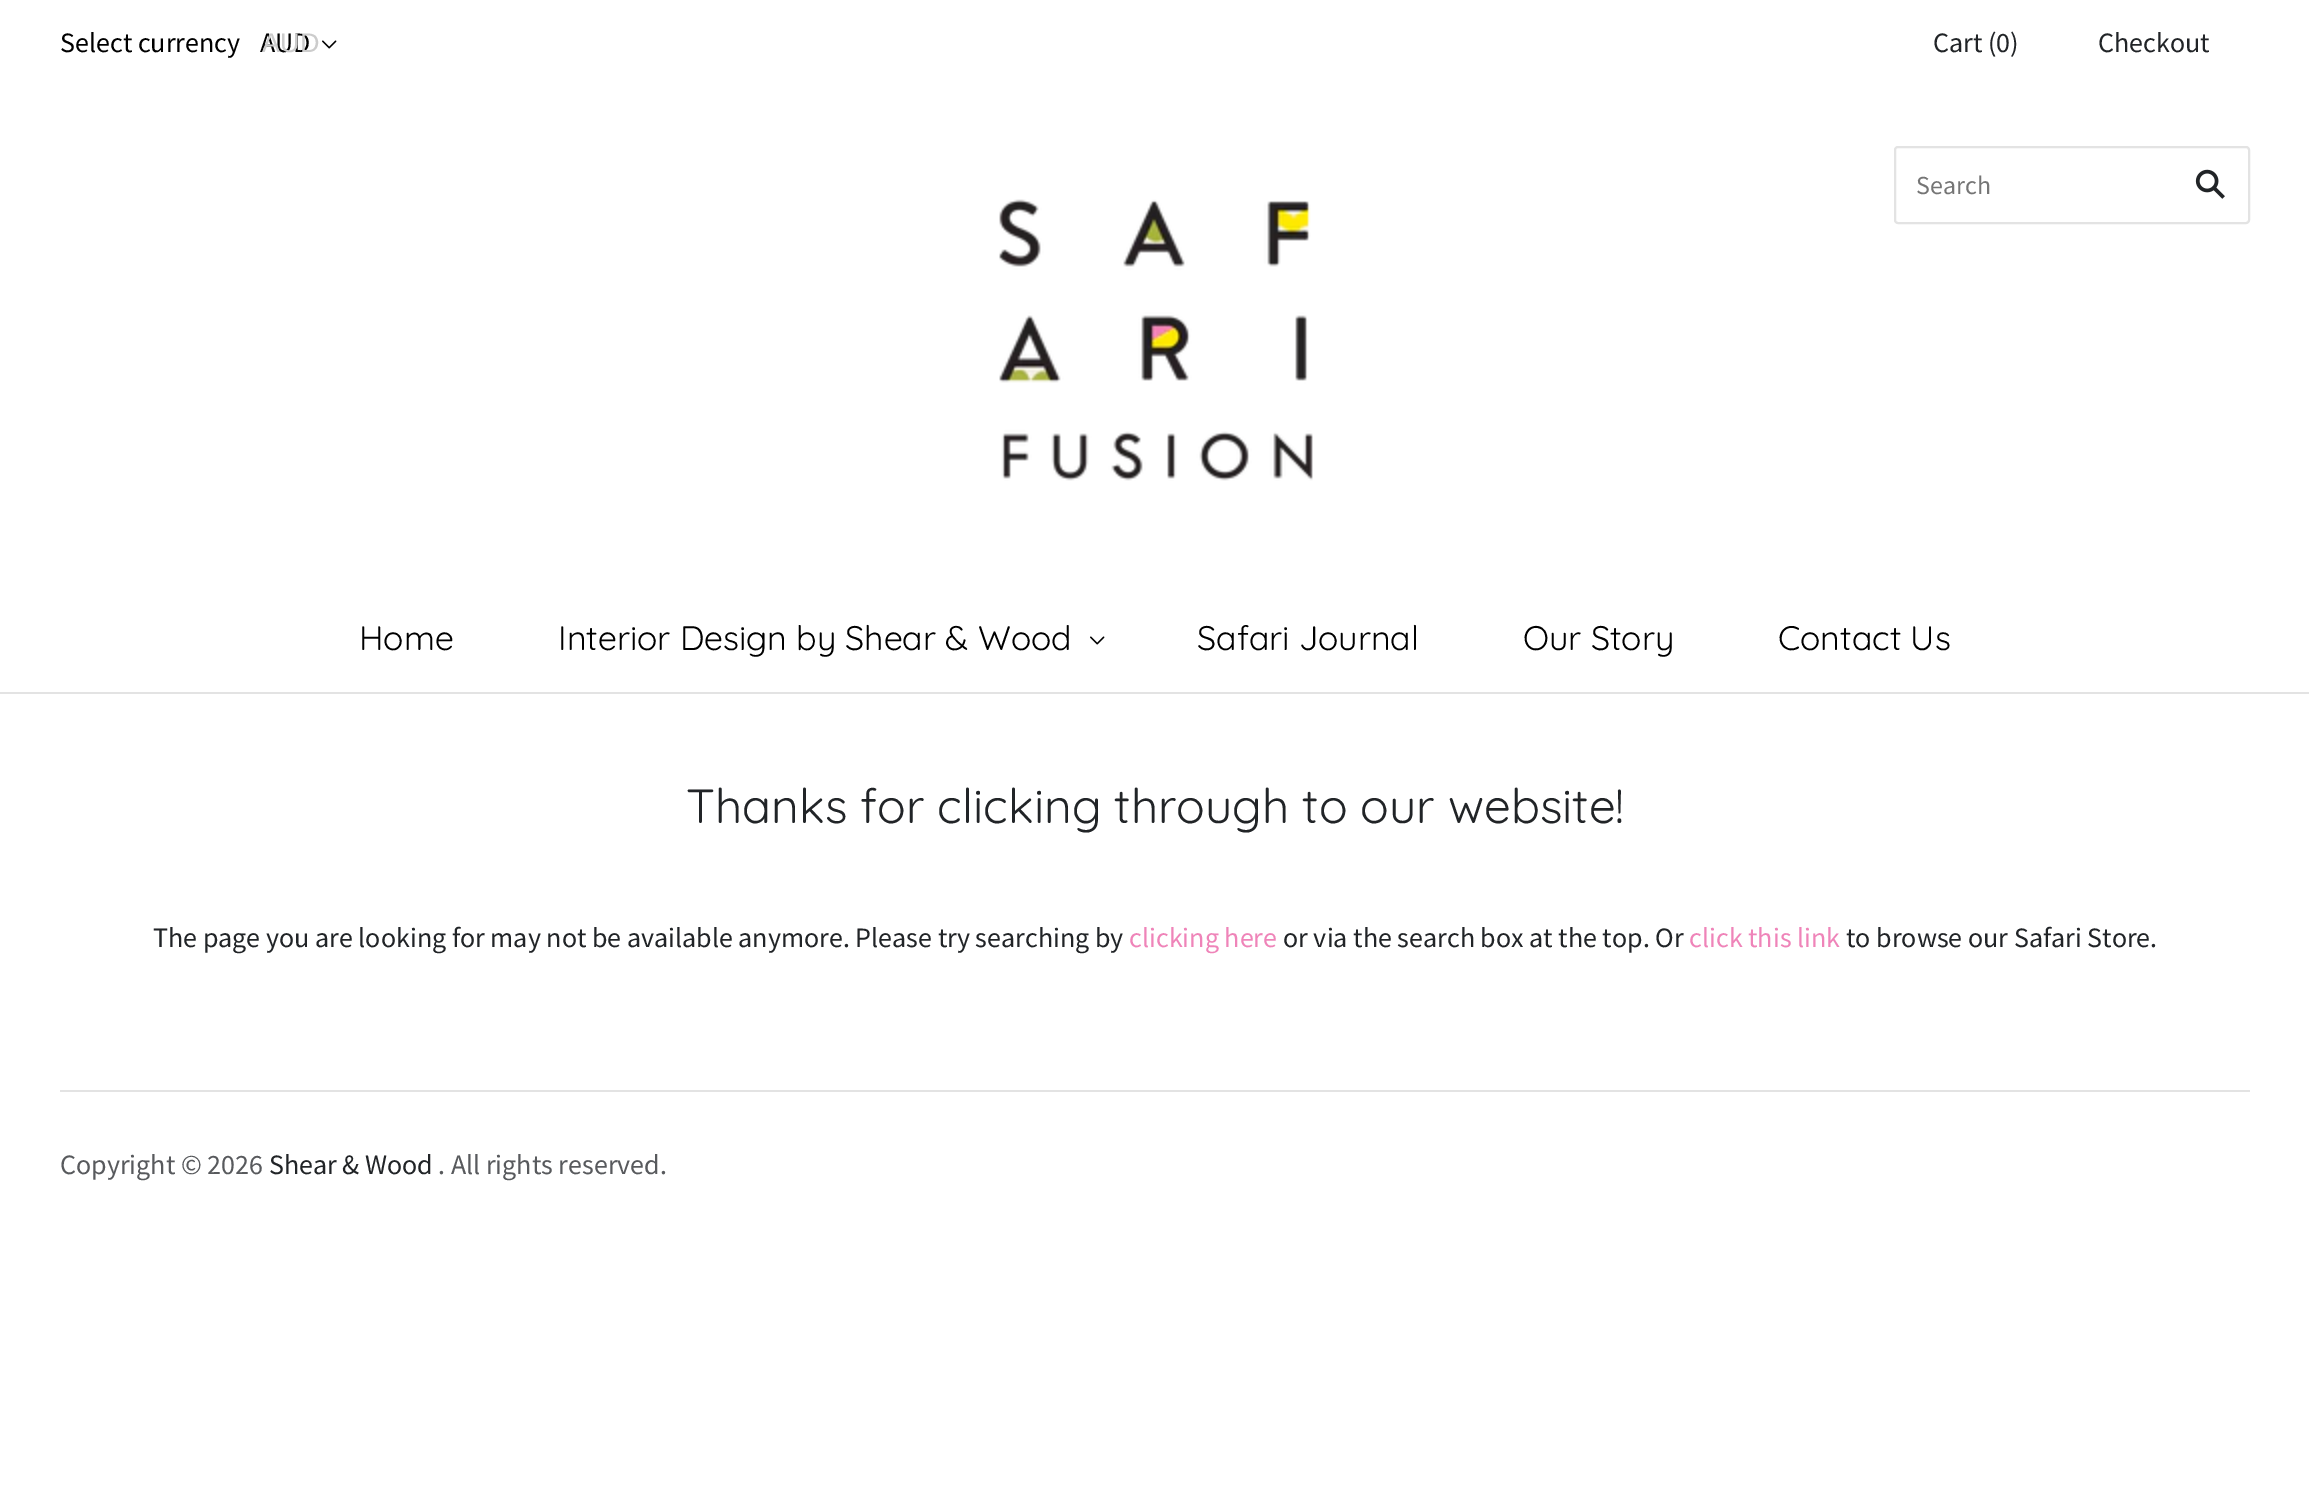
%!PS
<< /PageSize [2309 1503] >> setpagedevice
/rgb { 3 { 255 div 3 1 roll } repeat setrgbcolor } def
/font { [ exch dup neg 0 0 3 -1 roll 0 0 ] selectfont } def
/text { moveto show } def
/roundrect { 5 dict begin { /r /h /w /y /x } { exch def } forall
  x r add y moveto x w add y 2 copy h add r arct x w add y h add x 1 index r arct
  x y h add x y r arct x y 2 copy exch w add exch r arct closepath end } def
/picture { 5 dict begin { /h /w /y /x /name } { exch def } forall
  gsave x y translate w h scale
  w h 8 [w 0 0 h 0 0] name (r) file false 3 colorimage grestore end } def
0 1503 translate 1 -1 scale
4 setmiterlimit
255 255 255 rgb
0 0 2309 1503 rectfill
227 227 227 rgb
0 692 2309 2 rectfill
(img_01.rgb) 322 40 15 9 picture
2 setlinewidth
1895 147 354 76 3 roundrect stroke
(img_02.rgb) 2195 169 30 30 picture
(img_03.rgb) 999 199 314 282 picture
(img_01.rgb) 1090 636 15 9 picture
60 1090 2190 2 rectfill
/SourceSansPro-Regular 28 font
0 0 0 rgb
(Select currency) 60 52 text
(AUD) 260 52 text
/LiberationSans-Regular 27 font
204 204 204 rgb
(AUD) 262 52 text
/SourceSansPro-Regular 28 font
33 36 39 rgb
(Cart \(0\)) 1933 52 text
(Checkout) 2098 52 text
/SourceSansPro-Regular 26 font
117 117 117 rgb
(Search) 1916 194 text
/Quicksand-Regular 34 font
0 0 0 rgb
(Home) 359 650 text
(Interior Design by Shear & Wood) 558 650 text
(Safari Journal) 1197 650 text
(Our Story) 1523 650 text
(Contact Us) 1778 650 text
/Quicksand-Regular 48 font
33 36 39 rgb
(Thanks for clicking through to our website!) 686 823 text
/SourceSansPro-Regular 28 font
(The page you are looking for may not be available anymore. Please try searching by) 153 947 text
239 132 185 rgb
(clicking here) 1129 947 text
33 36 39 rgb
(or via the search box at the top. Or) 1283 947 text
239 132 185 rgb
(click this link) 1689 947 text
33 36 39 rgb
(to browse our Safari Store.) 1846 947 text
88 90 93 rgb
(Copyright © 2026) 60 1174 text
33 36 39 rgb
(Shear & Wood) 269 1174 text
88 90 93 rgb
(. All rights reserved.) 438 1174 text
showpage
